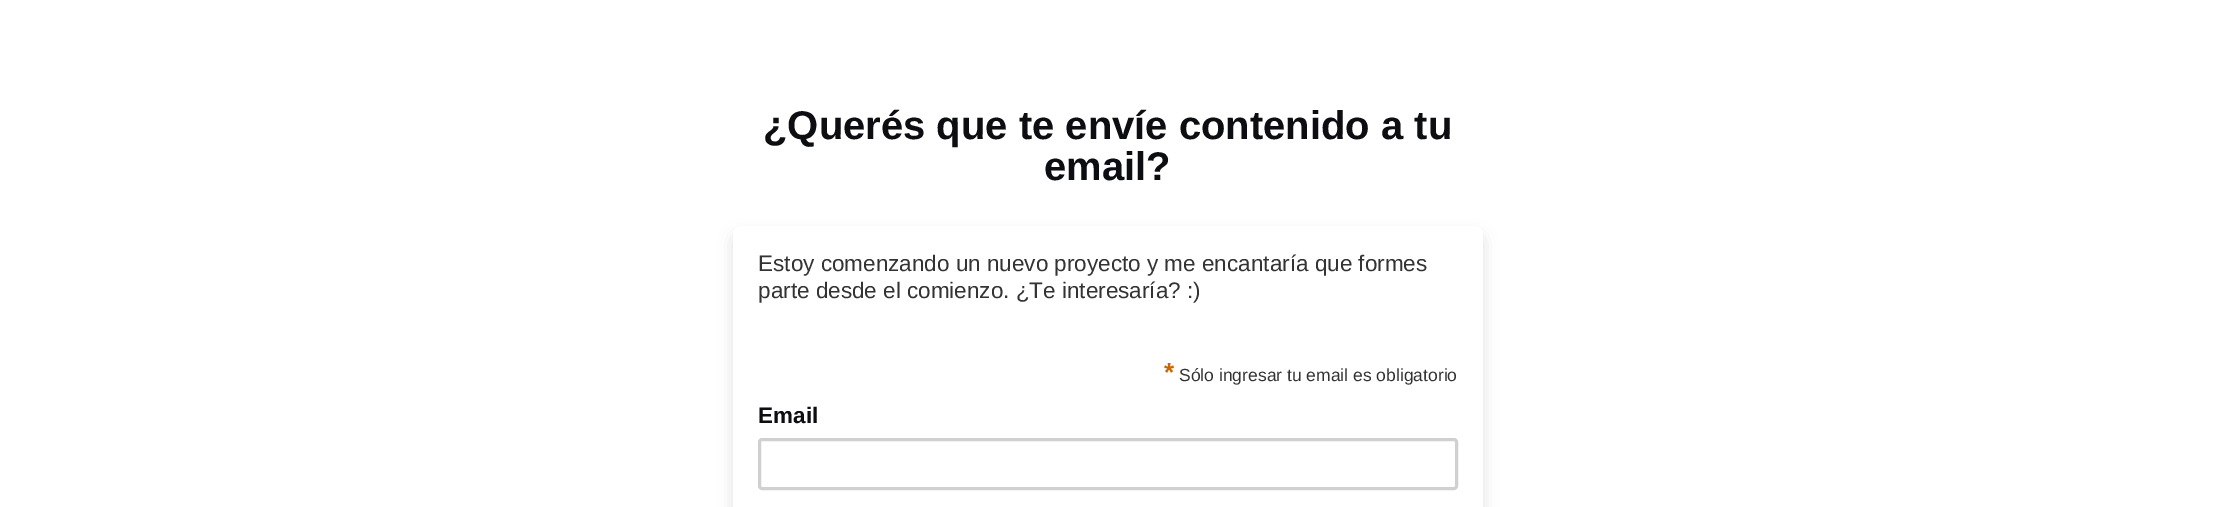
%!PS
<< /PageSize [2214 507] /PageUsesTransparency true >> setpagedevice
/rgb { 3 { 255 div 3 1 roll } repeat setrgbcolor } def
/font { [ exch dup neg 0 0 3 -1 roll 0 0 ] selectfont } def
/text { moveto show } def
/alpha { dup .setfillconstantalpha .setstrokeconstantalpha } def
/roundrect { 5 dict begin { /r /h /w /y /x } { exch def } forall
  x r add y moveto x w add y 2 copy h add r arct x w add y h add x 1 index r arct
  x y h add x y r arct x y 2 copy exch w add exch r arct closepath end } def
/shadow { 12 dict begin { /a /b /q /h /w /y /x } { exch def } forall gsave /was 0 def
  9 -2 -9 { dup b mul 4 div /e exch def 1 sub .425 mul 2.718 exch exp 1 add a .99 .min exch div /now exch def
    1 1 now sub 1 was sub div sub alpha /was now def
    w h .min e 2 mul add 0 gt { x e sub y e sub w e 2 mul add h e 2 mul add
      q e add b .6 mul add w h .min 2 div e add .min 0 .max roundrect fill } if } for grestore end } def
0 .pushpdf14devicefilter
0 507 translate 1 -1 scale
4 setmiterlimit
255 255 255 rgb
0 0 2214 507 rectfill
13 18 22 rgb
733 234 750 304 8 7.5 0.12 shadow
255 255 255 rgb
733 226 750 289 8 roundrect fill
208 208 208 rgb
3 setlinewidth
759.5 439.5 697 49 2.5 roundrect stroke
/LiberationSans-Bold 40 font
13 14 17 rgb
(¿Querés que te envíe contenido a tu) 763 139 text
(email?) 1044 180 text
/LiberationSans-Regular 22.5 font
51 51 51 rgb
(Estoy comenzando un nuevo proyecto y me encantaría que formes) 758 271 text
(parte desde el comienzo. ¿Te interesaría? :\)) 758 298 text
/LiberationSans-Bold 26 font
204 102 0 rgb
(*) 1164 381 text
/LiberationSans-Regular 17.5 font
51 51 51 rgb
(Sólo ingresar tu email es obligatorio) 1179 381 text
/LiberationSans-Bold 22.5 font
13 14 17 rgb
(Email) 758 423 text
.poppdf14devicefilter showpage
